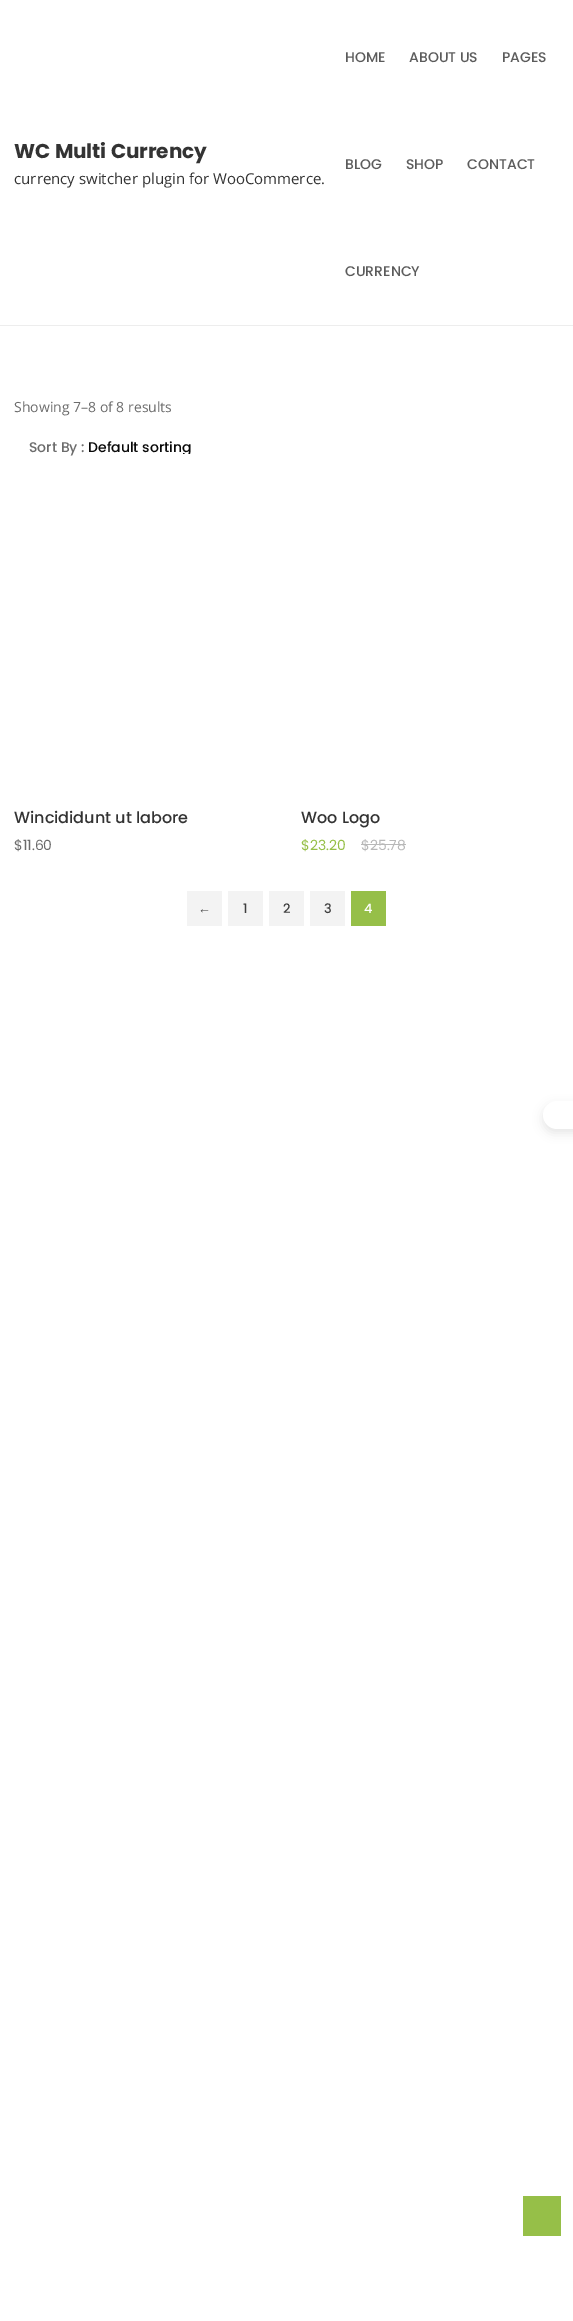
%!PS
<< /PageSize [573 2321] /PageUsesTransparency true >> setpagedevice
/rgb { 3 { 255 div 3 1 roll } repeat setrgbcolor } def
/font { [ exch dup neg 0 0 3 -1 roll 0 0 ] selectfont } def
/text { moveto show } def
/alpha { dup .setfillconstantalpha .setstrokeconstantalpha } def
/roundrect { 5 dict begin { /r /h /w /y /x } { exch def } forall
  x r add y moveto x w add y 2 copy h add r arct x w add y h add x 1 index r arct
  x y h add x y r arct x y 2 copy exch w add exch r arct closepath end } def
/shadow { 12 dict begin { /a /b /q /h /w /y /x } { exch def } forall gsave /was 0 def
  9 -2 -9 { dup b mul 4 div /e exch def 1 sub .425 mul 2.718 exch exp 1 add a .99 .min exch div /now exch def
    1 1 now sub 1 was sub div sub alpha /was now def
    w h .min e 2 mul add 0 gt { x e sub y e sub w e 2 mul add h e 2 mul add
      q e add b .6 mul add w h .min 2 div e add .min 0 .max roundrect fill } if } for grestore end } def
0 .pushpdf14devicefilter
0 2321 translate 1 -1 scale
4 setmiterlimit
255 255 255 rgb
0 0 573 2321 rectfill
237 237 237 rgb
0 325 573 1 rectfill
184 184 184 rgb
361 844 45 1 rectfill
243 243 243 rgb
187 891 35 35 rectfill
228 891 35 35 rectfill
269 891 35 35 rectfill
310 891 35 35 rectfill
150 191 72 rgb
351 891 35 35 rectfill
523 2196 38 40 rectfill
0 0 0 rgb
543 1105 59 28 14 5 0.1 shadow
255 255 255 rgb
557 1101 moveto 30 0 rlineto 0 28 rlineto -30 0 rlineto -7.5 0 -14 -6.5 -14 -14 rcurveto 0 -7.5 6.5 -14 14 -14 rcurveto closepath fill
/Poppins-Bold 20 font
51 51 51 rgb
(WC Multi Currency) 14 158 text
/OpenSans-Regular 15 font
(currency switcher plugin for WooCommerce.) 14 184 text
/Poppins-Medium 14 font
91 91 91 rgb
(HOME) 345 62 text
(ABOUT US) 409 62 text
(PAGES) 502 62 text
(BLOG) 345 169 text
(SHOP) 406 169 text
(CONTACT) 467 169 text
(CURRENCY) 345 276 text
/OpenSans-Regular 14 font
108 108 108 rgb
(Showing 7–8 of 8 results) 14 412 text
/Poppins-Medium 14 font
(Sort By :) 29 452 text
gsave
88 440 125 14 rectclip
9 9 9 rgb
(Default sorting) 88 452 text
grestore
/Poppins-Medium 16 font
51 51 51 rgb
(Wincididunt ut labore) 14 823 text
/Poppins-Regular 14 font
108 108 108 rgb
($11.60) 14 850 text
/Poppins-Medium 16 font
51 51 51 rgb
(Woo Logo) 301 823 text
/Poppins-Regular 14 font
150 191 72 rgb
($23.20) 301 850 text
184 184 184 rgb
($25.78) 361 850 text
/LiberationSans-Regular 13 font
63 63 63 rgb
(←) 198 913 text
/Poppins-Medium 13 font
(1) 243 913 text
(2) 283 913 text
(3) 324 913 text
255 255 255 rgb
(4) 364 913 text
.poppdf14devicefilter showpage
